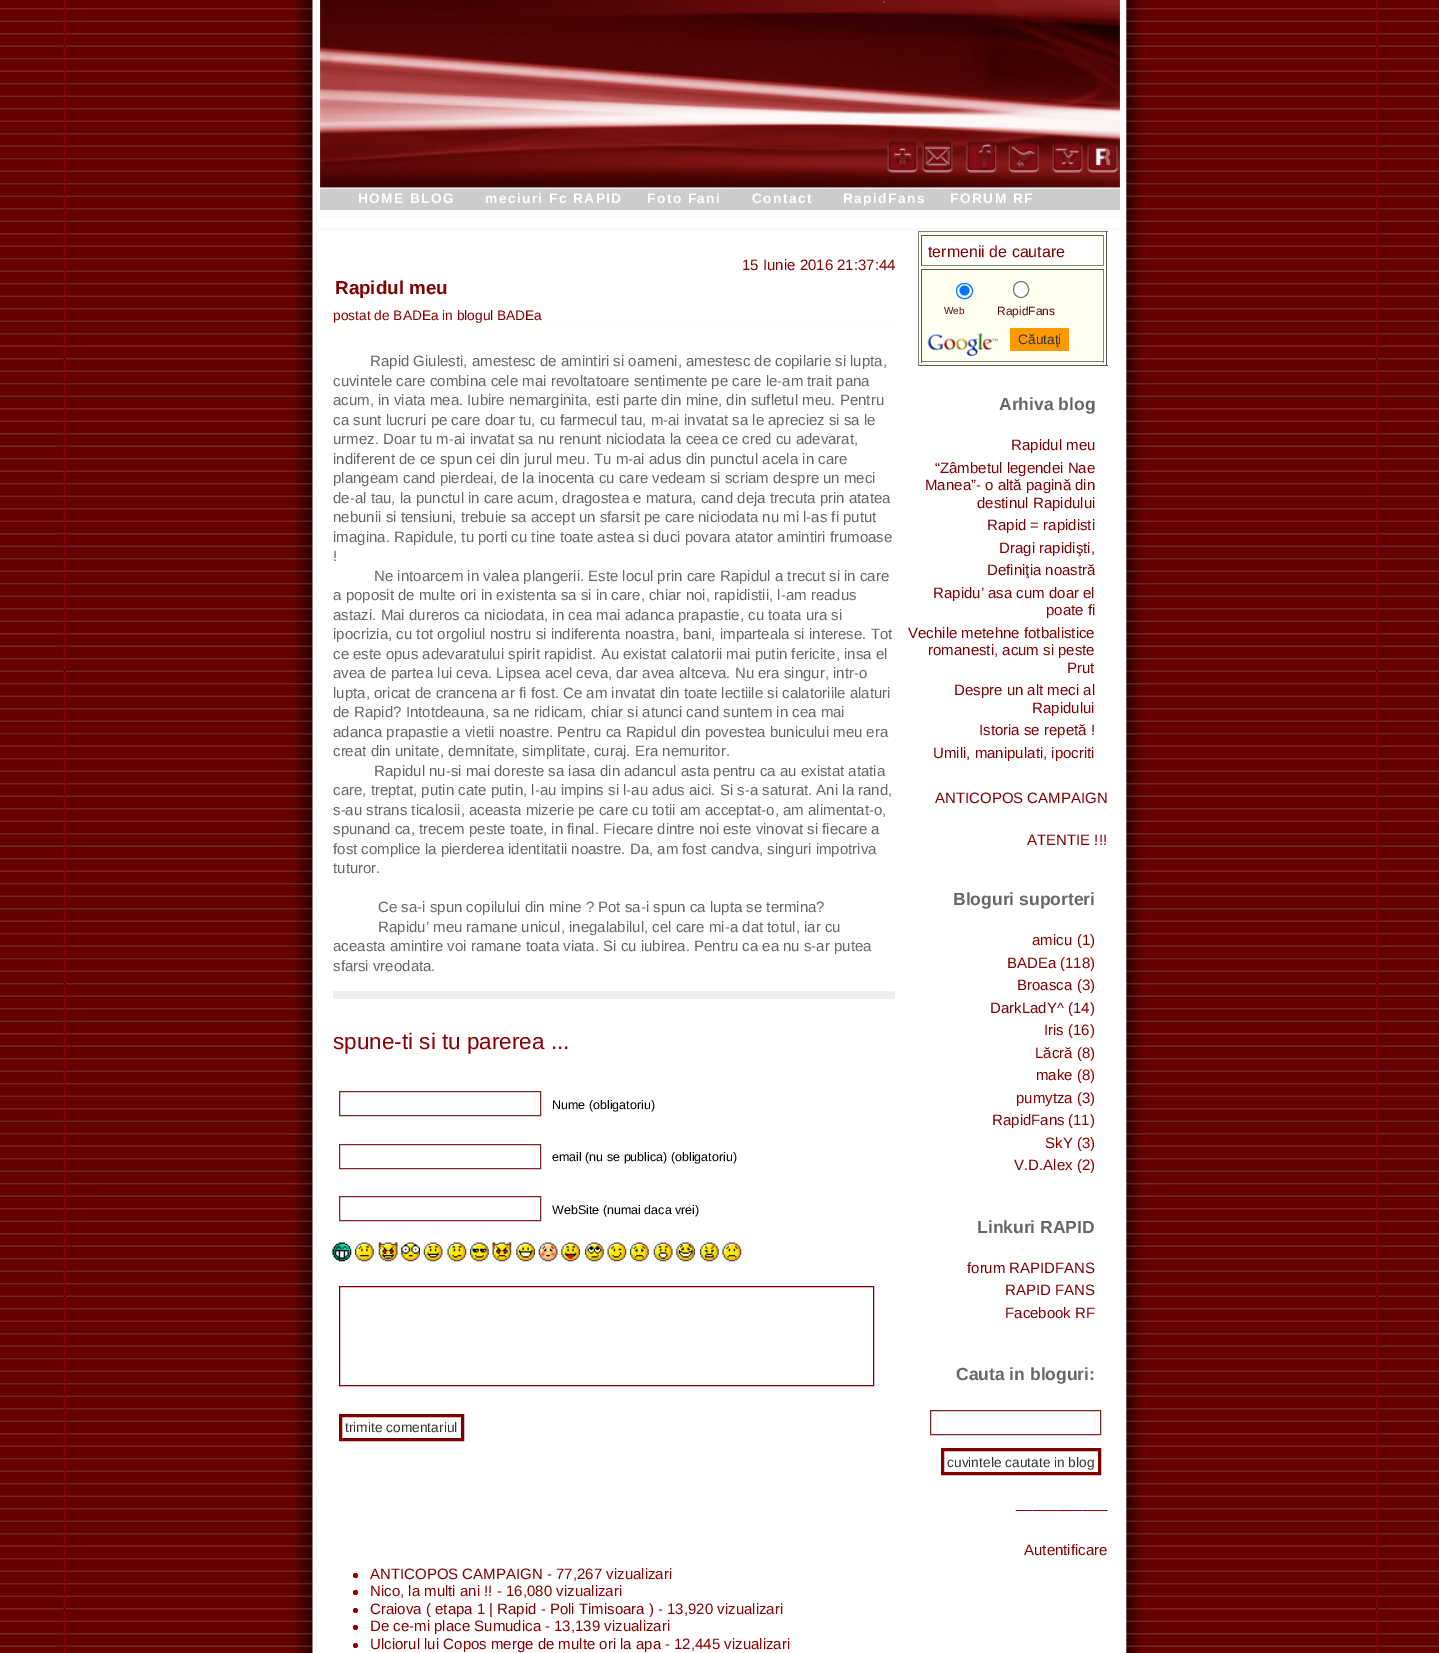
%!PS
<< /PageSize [1439 1653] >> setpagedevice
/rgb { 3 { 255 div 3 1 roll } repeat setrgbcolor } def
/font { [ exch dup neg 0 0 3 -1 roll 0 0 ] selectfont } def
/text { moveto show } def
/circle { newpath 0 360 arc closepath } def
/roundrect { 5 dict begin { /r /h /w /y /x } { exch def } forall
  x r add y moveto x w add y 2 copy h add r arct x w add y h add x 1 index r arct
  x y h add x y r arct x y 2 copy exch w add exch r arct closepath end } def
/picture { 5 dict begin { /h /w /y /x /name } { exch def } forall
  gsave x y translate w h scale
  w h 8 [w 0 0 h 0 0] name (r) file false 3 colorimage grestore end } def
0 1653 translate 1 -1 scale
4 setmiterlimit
255 255 255 rgb
0 0 1439 1653 rectfill
(img_01.rgb) 0 0 1439 1653 picture
(img_02.rgb) 320 0 800 188 picture
(img_03.rgb) 883 1 2 2 picture
(img_04.rgb) 887 141 31 32 picture
(img_05.rgb) 922 141 31 32 picture
(img_06.rgb) 966 141 31 32 picture
(img_07.rgb) 1008 141 31 32 picture
(img_08.rgb) 1052 142 31 31 picture
(img_09.rgb) 1087 142 31 31 picture
(img_10.rgb) 320 188 800 43 picture
255 255 240 rgb
1.2 setlinewidth
[1.25 1.25] 0 setdash
332.5 323 moveto 562.5 0 rlineto stroke
238 238 238 rgb
333 991 562 8 rectfill
129 39 39 rgb
1 setlinewidth
[] 0 setdash
339.5 1091.5 201 24 rectstroke
339.5 1144.5 201 24 rectstroke
339.5 1196.5 201 24 rectstroke
(img_11.rgb) 332 1242 20 20 picture
(img_12.rgb) 355 1242 19 20 picture
(img_13.rgb) 378 1242 20 20 picture
(img_14.rgb) 401 1242 19 20 picture
(img_15.rgb) 423 1242 20 20 picture
(img_16.rgb) 447 1242 20 20 picture
(img_17.rgb) 470 1242 19 20 picture
(img_18.rgb) 492 1242 20 20 picture
(img_19.rgb) 516 1242 19 20 picture
(img_20.rgb) 538 1242 20 20 picture
(img_21.rgb) 561 1242 19 20 picture
(img_22.rgb) 585 1242 19 20 picture
(img_23.rgb) 607 1242 20 20 picture
(img_24.rgb) 630 1242 19 20 picture
(img_25.rgb) 653 1242 20 20 picture
(img_26.rgb) 676 1242 19 20 picture
(img_27.rgb) 700 1242 19 20 picture
(img_28.rgb) 722 1242 20 20 picture
128 0 0 rgb
339.5 1286.5 534 99 rectstroke
3 setlinewidth
340.5 1415.5 122 24 rectstroke
255 255 240 rgb
919 232 189 133 rectfill
128 128 128 rgb
918 231 190 1 rectfill
85 85 85 rgb
1106 231 1 135 rectfill
918 365 190 1 rectfill
128 128 128 rgb
918 231 1 135 rectfill
85 85 85 rgb
921 235 183 1 rectfill
128 128 128 rgb
1103 235 1 31 rectfill
921 265 183 1 rectfill
85 85 85 rgb
921 235 1 31 rectfill
255 255 255 rgb
924 239 177 25 rectfill
85 85 85 rgb
921 269 183 1 rectfill
128 128 128 rgb
1103 269 1 94 rectfill
921 361 183 1 rectfill
85 85 85 rgb
921 269 1 94 rectfill
255 255 255 rgb
956.5 283.5 16 15 7.5 roundrect gsave fill grestore
0 117 255 rgb
1 setlinewidth
stroke
964.5 290.5 5 circle fill
255 255 255 rgb
1013.5 281.5 15 16 7.5 roundrect gsave fill grestore
118 118 118 rgb
stroke
(img_29.rgb) 927 333 71 24 picture
255 153 0 rgb
1010 328 59 23 rectfill
129 39 39 rgb
930.5 1410.5 170 24 rectstroke
128 0 0 rgb
3 setlinewidth
942.5 1449.5 157 24 rectstroke
139 0 0 rgb
355.5 1575.5 2.5 circle fill
355.5 1592.5 2.5 circle fill
355.5 1610.5 2.5 circle fill
355.5 1627.5 2.5 circle fill
355.5 1645.5 2.5 circle fill
/LiberationSans-Bold 13.75 font
255 255 255 rgb
358 203 moveto 1.4 0 (HOME BLOG) ashow
485 203 moveto 1.4 0 (meciuri Fc RAPID) ashow
647 203 moveto 1.4 0 (Foto Fani) ashow
752 203 moveto 1.4 0 (Contact) ashow
843 203 moveto 1.4 0 (RapidFans) ashow
950 203 moveto 1.4 0 (FORUM RF) ashow
/LiberationSans-Regular 15 font
139 0 0 rgb
(15 Iunie 2016 21:37:44) 742 270 text
/LiberationSans-Bold 18.75 font
128 0 0 rgb
(Rapidul meu) 335 294 text
/LiberationSans-Regular 13.75 font
139 0 0 rgb
(postat de BADEa in blogul) 333 320 text
128 0 0 rgb
(BADEa) 497 320 text
/LiberationSans-Regular 15 font
102 102 102 rgb
(Rapid Giulesti, amestesc de amintiri si oameni, amestesc de copilarie si lupta,) 370 366 text
(cuvintele care combina cele mai revoltatoare sentimente pe care le-am trait pana) 333 386 text
(acum, in viata mea. Iubire nemarginita, esti parte din mine, din sufletul meu. Pentru) 333 405 text
(ca sunt lucruri pe care doar tu, cu farmecul tau, m-ai invatat sa le apreciez si sa le) 333 425 text
(urmez. Doar tu m-ai invatat sa nu renunt niciodata la ceea ce cred cu adevarat,) 333 444 text
(indiferent de ce spun cei din jurul meu. Tu m-ai adus din punctul acela in care) 333 464 text
(plangeam cand pierdeai, de la inocenta cu care vedeam si scriam despre un meci) 333 483 text
(de-al tau, la punctul in care acum, dragostea e matura, cand deja trecuta prin atatea) 333 503 text
(nebunii si tensiuni, trebuie sa accept un sfarsit pe care niciodata nu mi l-as fi putut) 333 522 text
(imagina. Rapidule, tu porti cu tine toate astea si duci povara atator amintiri frumoase) 333 542 text
(!) 333 561 text
(Ne intoarcem in valea plangerii. Este locul prin care Rapidul a trecut si in care) 374 581 text
(a poposit de multe ori in existenta sa si in care, chiar noi, rapidistii, l-am readus) 333 600 text
(astazi. Mai dureros ca niciodata, in cea mai adanca prapastie, cu toata ura si) 333 620 text
(ipocrizia, cu tot orgoliul nostru si indiferenta noastra, bani, imparteala si interese. Tot) 333 639 text
(ce este opus adevaratului spirit rapidist. Au existat calatorii mai putin fericite, insa el) 333 659 text
(avea de partea lui ceva. Lipsea acel ceva, dar avea altceva. Nu era singur, intr-o) 333 678 text
(lupta, oricat de crancena ar fi fost. Ce am invatat din toate lectiile si calatoriile alaturi) 333 698 text
(de Rapid? Intotdeauna, sa ne ridicam, chiar si atunci cand suntem in cea mai) 333 717 text
(adanca prapastie a vietii noastre. Pentru ca Rapidul din povestea bunicului meu era) 333 737 text
(creat din unitate, demnitate, simplitate, curaj. Era nemuritor.) 333 756 text
(Rapidul nu-si mai doreste sa iasa din adancul asta pentru ca au existat atatia) 374 776 text
(care, treptat, putin cate putin, l-au impins si l-au adus aici. Si s-a saturat. Ani la rand,) 333 795 text
(s-au strans ticalosii, aceasta mizerie pe care cu totii am acceptat-o, am alimentat-o,) 333 815 text
(spunand ca, trecem peste toate, in final. Fiecare dintre noi este vinovat si fiecare a) 333 834 text
(fost complice la pierderea identitatii noastre. Da, am fost candva, singuri impotriva) 333 854 text
(tuturor.) 333 873 text
(Ce sa-i spun copilului din mine ? Pot sa-i spun ca lupta se termina?) 378 912 text
(Rapidu’ meu ramane unicul, inegalabilul, cel care mi-a dat totul, iar cu) 378 932 text
(aceasta amintire voi ramane toata viata. Si cu iubirea. Pentru ca ea nu s-ar putea) 333 951 text
(sfarsi vreodata.) 333 971 text
/LiberationSans-Regular 22.5 font
139 0 0 rgb
(spune-ti si tu parerea ...) 333 1049 text
/LiberationSans-Regular 12.5 font
0 0 0 rgb
(Nume \(obligatoriu\)) 552 1109 text
(email \(nu se publica\) \(obligatoriu\)) 552 1161 text
(WebSite \(numai daca vrei\)) 552 1214 text
/LiberationSans-Regular 13.75 font
51 51 51 rgb
(trimite comentariul) 345 1432 text
/LiberationSans-Regular 16 font
128 0 0 rgb
(termenii de cautare) 928 257 text
/LiberationSans-Regular 10 font
96 4 4 rgb
(Web) 944 314 text
/LiberationSans-Regular 12 font
(RapidFans) 997 315 text
/LiberationSans-Regular 13.75 font
51 51 51 rgb
(Căutaţi) 1018 344 text
/LiberationSans-Bold 17.5 font
102 102 102 rgb
(Arhiva blog) 999 410 text
/LiberationSans-Regular 15 font
128 0 0 rgb
(Rapidul meu) 1011 450 text
(“Zâmbetul legendei Nae) 935 473 text
(Manea”- o altă pagină din) 925 490 text
(destinul Rapidului) 977 508 text
(Rapid = rapidisti) 987 530 text
(Dragi rapidişti,) 999 553 text
(Definiţia noastră) 987 575 text
(Rapidu’ asa cum doar el) 933 598 text
(poate fi) 1046 615 text
(Vechile metehne fotbalistice) 908 638 text
(romanesti, acum si peste) 928 655 text
(Prut) 1067 673 text
(Despre un alt meci al) 954 695 text
(Rapidului) 1032 713 text
(Istoria se repetă !) 979 735 text
(Umili, manipulati, ipocriti) 933 758 text
(ANTICOPOS CAMPAIGN) 935 803 text
(ATENTIE !!!) 1027 845 text
/LiberationSans-Bold 17.5 font
102 102 102 rgb
(Bloguri suporteri) 953 905 text
/LiberationSans-Regular 15 font
128 0 0 rgb
(amicu) 1032 945 text
139 0 0 rgb
(\(1\)) 1077 945 text
128 0 0 rgb
(BADEa) 1007 968 text
139 0 0 rgb
(\(118\)) 1060 968 text
128 0 0 rgb
(Broasca) 1017 990 text
139 0 0 rgb
(\(3\)) 1077 990 text
128 0 0 rgb
(DarkLadY^) 990 1013 text
139 0 0 rgb
(\(14\)) 1068 1013 text
128 0 0 rgb
(Iris) 1044 1035 text
139 0 0 rgb
(\(16\)) 1068 1035 text
128 0 0 rgb
(Lăcră) 1035 1058 text
139 0 0 rgb
(\(8\)) 1077 1058 text
128 0 0 rgb
(make) 1036 1080 text
139 0 0 rgb
(\(8\)) 1077 1080 text
128 0 0 rgb
(pumytza) 1016 1103 text
139 0 0 rgb
(\(3\)) 1077 1103 text
128 0 0 rgb
(RapidFans) 992 1125 text
139 0 0 rgb
(\(11\)) 1068 1125 text
128 0 0 rgb
(SkY) 1045 1148 text
139 0 0 rgb
(\(3\)) 1077 1148 text
128 0 0 rgb
(V.D.Alex) 1014 1170 text
139 0 0 rgb
(\(2\)) 1077 1170 text
/LiberationSans-Bold 17.5 font
102 102 102 rgb
(Linkuri RAPID) 977 1233 text
/LiberationSans-Regular 15 font
128 0 0 rgb
(forum RAPIDFANS) 967 1273 text
(RAPID FANS) 1005 1295 text
(Facebook RF) 1005 1318 text
/LiberationSans-Bold 17.5 font
102 102 102 rgb
(Cauta in bloguri:) 956 1380 text
/LiberationSans-Regular 13.75 font
51 51 51 rgb
(cuvintele cautate in blog) 947 1467 text
/LiberationSans-Regular 15 font
139 0 0 rgb
(___________) 1016 1508 text
128 0 0 rgb
(Autentificare) 1024 1555 text
(ANTICOPOS CAMPAIGN) 370 1579 text
139 0 0 rgb
(- 77,267 vizualizari) 547 1579 text
128 0 0 rgb
(Nico, la multi ani !!) 370 1596 text
139 0 0 rgb
(- 16,080 vizualizari) 497 1596 text
128 0 0 rgb
(Craiova \( etapa 1 | Rapid - Poli Timisoara \)) 370 1614 text
139 0 0 rgb
(- 13,920 vizualizari) 658 1614 text
128 0 0 rgb
(De ce-mi place Sumudica) 370 1631 text
139 0 0 rgb
(- 13,139 vizualizari) 545 1631 text
128 0 0 rgb
(Ulciorul lui Copos merge de multe ori la apa) 370 1649 text
139 0 0 rgb
(- 12,445 vizualizari) 665 1649 text
showpage
